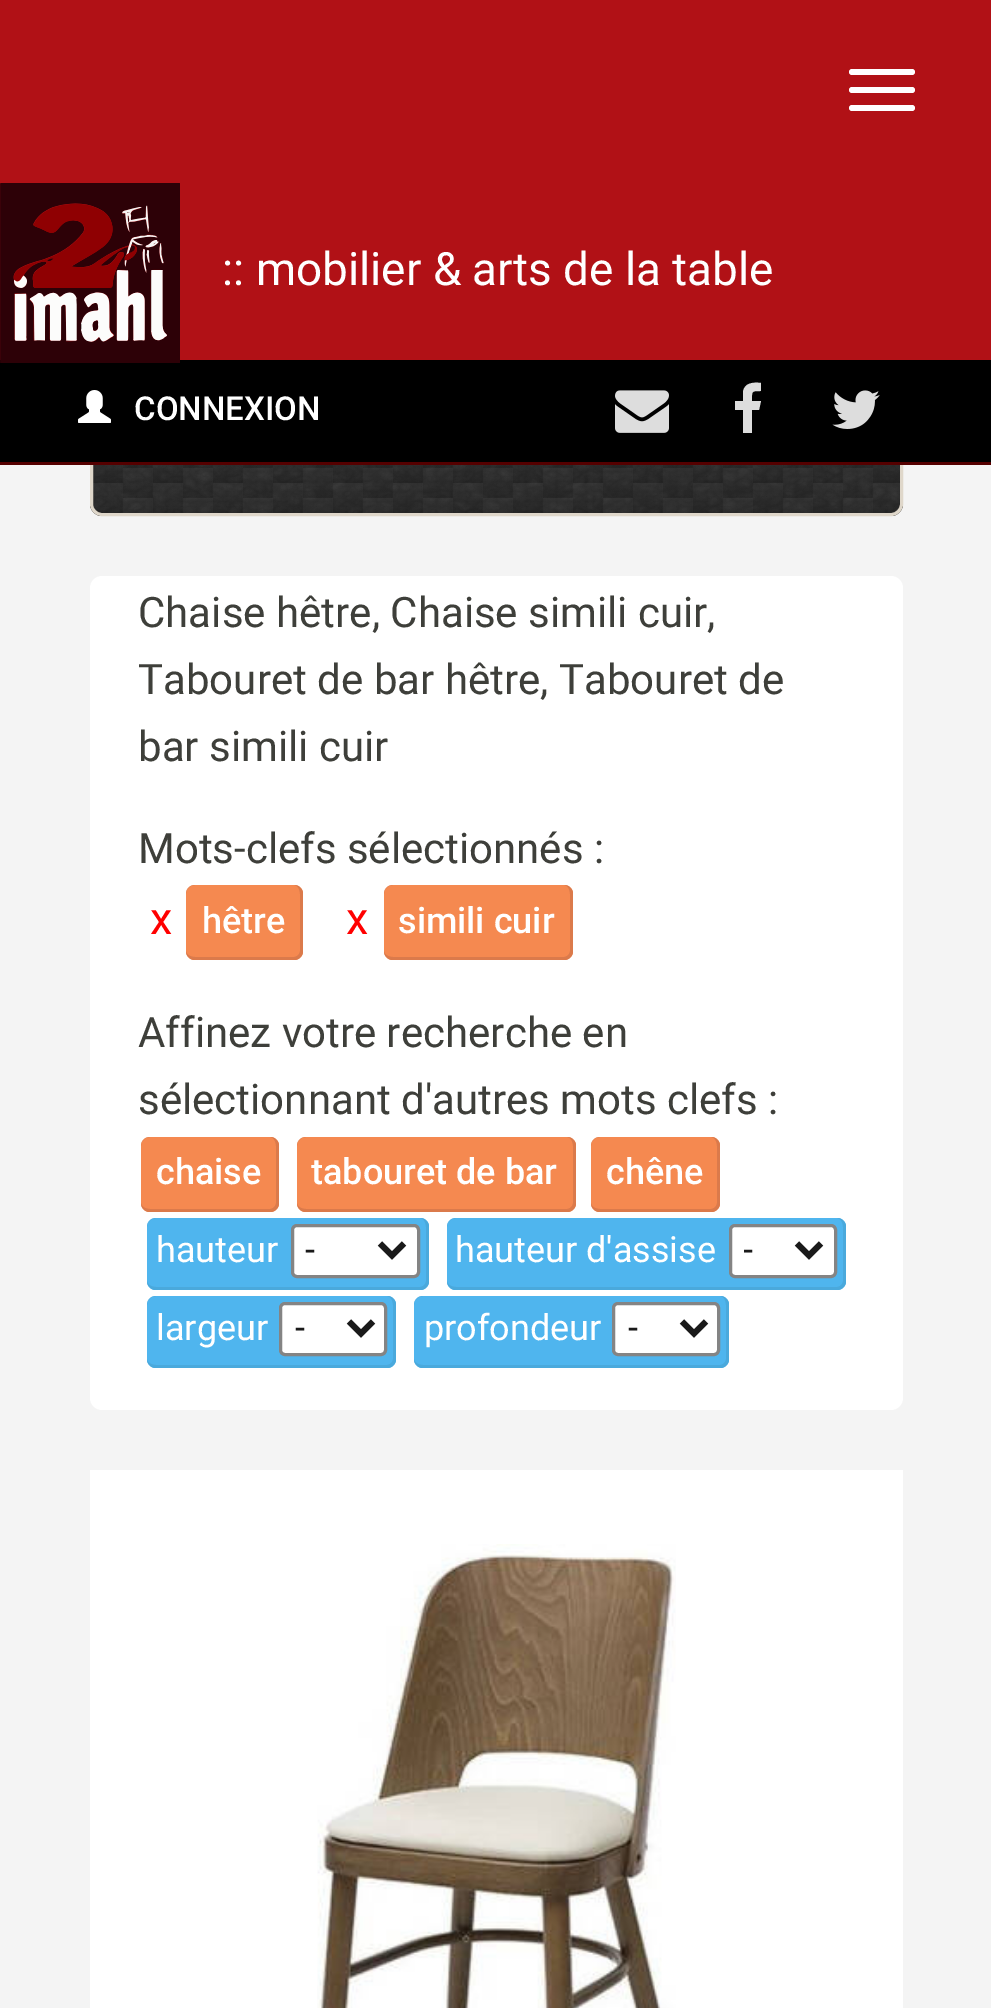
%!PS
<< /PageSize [991 2008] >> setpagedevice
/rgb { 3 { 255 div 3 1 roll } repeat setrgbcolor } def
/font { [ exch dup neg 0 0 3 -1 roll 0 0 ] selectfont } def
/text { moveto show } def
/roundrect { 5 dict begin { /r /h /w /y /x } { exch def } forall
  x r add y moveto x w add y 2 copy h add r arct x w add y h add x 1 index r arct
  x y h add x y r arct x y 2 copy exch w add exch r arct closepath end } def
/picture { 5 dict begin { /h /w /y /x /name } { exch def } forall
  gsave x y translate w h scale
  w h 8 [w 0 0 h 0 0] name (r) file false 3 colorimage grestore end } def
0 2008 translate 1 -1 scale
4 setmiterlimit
244 244 244 rgb
0 0 991 2008 rectfill
(img_05.rgb) 90 465 813 51 picture
223 215 202 rgb
3 setlinewidth
91.5 331.5 810 183 10.5 roundrect stroke
177 17 22 rgb
0 0 991 360 rectfill
85 0 0 rgb
0 462 991 3 rectfill
255 255 255 rgb
849 69 66 6 3 roundrect fill
849 87 66 6 3 roundrect fill
849 105 66 6 3 roundrect fill
0 0 0 rgb
0 360 991 102 rectfill
(img_01.rgb) 0 183 180 180 picture
(img_02.rgb) 78 390 33 33 picture
(img_03.rgb) 615 390 54 43 picture
221 221 221 rgb
761 383 moveto 0 8 rlineto -10 0 -9 0 -9 10 rcurveto 9 0 rlineto -2 9 rlineto -7 0 rlineto 0 23 rlineto -9 0 rlineto 0 -23 rlineto -8 0 rlineto 0 -9 rlineto 8 0 rlineto 0 -9 rlineto 1 -9 10 -10 18 -9 rcurveto closepath fill
(img_04.rgb) 832 390 48 39 picture
255 255 255 rgb
90 576 813 834 12 roundrect fill
245 137 80 rgb
186 885 117 75 9 roundrect fill
219 122 75 rgb
195 885 moveto 99 0 rlineto 5 0 9 4 9 9 rcurveto 0 57 rlineto 0 5 -4 9 -9 9 rcurveto -99 0 rlineto -5 0 -9 -4 -9 -9 rcurveto 0 -57 rlineto 0 -5 4 -9 9 -9 rcurveto closepath 195 885 moveto 99 0 rlineto 3 0 6 4 6 9 rcurveto 0 57 rlineto 0 3 -3 6 -6 6 rcurveto -99 0 rlineto -5 0 -9 -3 -9 -6 rcurveto 0 -57 rlineto 0 -5 4 -9 9 -9 rcurveto closepath eofill
245 137 80 rgb
384 885 189 75 9 roundrect fill
219 122 75 rgb
393 885 moveto 171 0 rlineto 5 0 9 4 9 9 rcurveto 0 57 rlineto 0 5 -4 9 -9 9 rcurveto -171 0 rlineto -5 0 -9 -4 -9 -9 rcurveto 0 -57 rlineto 0 -5 4 -9 9 -9 rcurveto closepath 393 885 moveto 171 0 rlineto 3 0 6 4 6 9 rcurveto 0 57 rlineto 0 3 -3 6 -6 6 rcurveto -171 0 rlineto -5 0 -9 -3 -9 -6 rcurveto 0 -57 rlineto 0 -5 4 -9 9 -9 rcurveto closepath eofill
245 137 80 rgb
141 1137 138 75 9 roundrect fill
219 122 75 rgb
150 1137 moveto 120 0 rlineto 5 0 9 4 9 9 rcurveto 0 57 rlineto 0 5 -4 9 -9 9 rcurveto -120 0 rlineto -5 0 -9 -4 -9 -9 rcurveto 0 -57 rlineto 0 -5 4 -9 9 -9 rcurveto closepath 150 1137 moveto 120 0 rlineto 3 0 6 4 6 9 rcurveto 0 57 rlineto 0 3 -3 6 -6 6 rcurveto -120 0 rlineto -5 0 -9 -3 -9 -6 rcurveto 0 -57 rlineto 0 -5 4 -9 9 -9 rcurveto closepath eofill
245 137 80 rgb
297 1137 279 75 9 roundrect fill
219 122 75 rgb
306 1137 moveto 261 0 rlineto 5 0 9 4 9 9 rcurveto 0 57 rlineto 0 5 -4 9 -9 9 rcurveto -261 0 rlineto -5 0 -9 -4 -9 -9 rcurveto 0 -57 rlineto 0 -5 4 -9 9 -9 rcurveto closepath 306 1137 moveto 261 0 rlineto 3 0 6 4 6 9 rcurveto 0 57 rlineto 0 3 -3 6 -6 6 rcurveto -261 0 rlineto -5 0 -9 -3 -9 -6 rcurveto 0 -57 rlineto 0 -5 4 -9 9 -9 rcurveto closepath eofill
245 137 80 rgb
591 1137 129 75 9 roundrect fill
219 122 75 rgb
600 1137 moveto 111 0 rlineto 5 0 9 4 9 9 rcurveto 0 57 rlineto 0 5 -4 9 -9 9 rcurveto -111 0 rlineto -5 0 -9 -4 -9 -9 rcurveto 0 -57 rlineto 0 -5 4 -9 9 -9 rcurveto closepath 600 1137 moveto 111 0 rlineto 3 0 6 4 6 9 rcurveto 0 57 rlineto 0 3 -3 6 -6 6 rcurveto -111 0 rlineto -5 0 -9 -3 -9 -6 rcurveto 0 -57 rlineto 0 -5 4 -9 9 -9 rcurveto closepath eofill
79 181 238 rgb
147 1218 282 72 9 roundrect fill
74 169 220 rgb
156 1218 moveto 264 0 rlineto 5 0 9 4 9 9 rcurveto 0 54 rlineto 0 5 -4 9 -9 9 rcurveto -264 0 rlineto -5 0 -9 -4 -9 -9 rcurveto 0 -54 rlineto 0 -5 4 -9 9 -9 rcurveto closepath 156 1218 moveto 264 0 rlineto 3 0 6 4 6 9 rcurveto 0 54 rlineto 0 3 -3 6 -6 6 rcurveto -264 0 rlineto -5 0 -9 -3 -9 -6 rcurveto 0 -54 rlineto 0 -5 4 -9 9 -9 rcurveto closepath eofill
255 255 255 rgb
292.5 1225.5 126 51 4.5 roundrect gsave fill grestore
132 132 132 rgb
stroke
26 26 26 rgb
6 setlinewidth
380 1243.5 moveto 12 12 rlineto 12 -12 rlineto stroke
79 181 238 rgb
447 1218 399 72 9 roundrect fill
74 169 220 rgb
456 1218 moveto 381 0 rlineto 5 0 9 4 9 9 rcurveto 0 54 rlineto 0 5 -4 9 -9 9 rcurveto -381 0 rlineto -5 0 -9 -4 -9 -9 rcurveto 0 -54 rlineto 0 -5 4 -9 9 -9 rcurveto closepath 456 1218 moveto 381 0 rlineto 3 0 6 4 6 9 rcurveto 0 54 rlineto 0 3 -3 6 -6 6 rcurveto -381 0 rlineto -5 0 -9 -3 -9 -6 rcurveto 0 -54 rlineto 0 -5 4 -9 9 -9 rcurveto closepath eofill
255 255 255 rgb
730.5 1225.5 105 51 4.5 roundrect gsave fill grestore
132 132 132 rgb
3 setlinewidth
stroke
26 26 26 rgb
6 setlinewidth
797 1243.5 moveto 12 12 rlineto 12 -12 rlineto stroke
79 181 238 rgb
147 1296 249 72 9 roundrect fill
74 169 220 rgb
156 1296 moveto 231 0 rlineto 5 0 9 4 9 9 rcurveto 0 54 rlineto 0 5 -4 9 -9 9 rcurveto -231 0 rlineto -5 0 -9 -4 -9 -9 rcurveto 0 -54 rlineto 0 -5 4 -9 9 -9 rcurveto closepath 156 1296 moveto 231 0 rlineto 3 0 6 4 6 9 rcurveto 0 54 rlineto 0 3 -3 6 -6 6 rcurveto -231 0 rlineto -5 0 -9 -3 -9 -6 rcurveto 0 -54 rlineto 0 -5 4 -9 9 -9 rcurveto closepath eofill
255 255 255 rgb
280.5 1303.5 105 51 4.5 roundrect gsave fill grestore
132 132 132 rgb
3 setlinewidth
stroke
26 26 26 rgb
6 setlinewidth
349 1321.5 moveto 12 12 rlineto 12 -12 rlineto stroke
79 181 238 rgb
414 1296 315 72 9 roundrect fill
74 169 220 rgb
423 1296 moveto 297 0 rlineto 5 0 9 4 9 9 rcurveto 0 54 rlineto 0 5 -4 9 -9 9 rcurveto -297 0 rlineto -5 0 -9 -4 -9 -9 rcurveto 0 -54 rlineto 0 -5 4 -9 9 -9 rcurveto closepath 423 1296 moveto 297 0 rlineto 3 0 6 4 6 9 rcurveto 0 54 rlineto 0 3 -3 6 -6 6 rcurveto -297 0 rlineto -5 0 -9 -3 -9 -6 rcurveto 0 -54 rlineto 0 -5 4 -9 9 -9 rcurveto closepath eofill
255 255 255 rgb
613.5 1303.5 105 51 4.5 roundrect gsave fill grestore
132 132 132 rgb
3 setlinewidth
stroke
26 26 26 rgb
6 setlinewidth
682 1321.5 moveto 12 12 rlineto 12 -12 rlineto stroke
255 255 255 rgb
90 1470 813 538 rectfill
(img_06.rgb) 317 1544 359 464 picture
/Roboto-Regular 45.9 font
(:: mobilier & arts de la table) 222 285 text
/Roboto-Medium 33 font
(CONNEXION) 134 420 text
/Roboto-Regular 42 font
62 63 58 rgb
(Chaise hêtre, Chaise simili cuir,) 138 627 text
(Tabouret de bar hêtre, Tabouret de) 138 694 text
(bar simili cuir) 138 761 text
(Mots-clefs sélectionnés :) 138 863 text
/Roboto-Regular 45 font
255 0 0 rgb
(x) 150 934 text
/Roboto-Medium 36 font
255 255 255 rgb
(hêtre) 202 933 text
/Roboto-Regular 45 font
255 0 0 rgb
(x) 346 934 text
/Roboto-Medium 36 font
255 255 255 rgb
(simili cuir) 398 933 text
/Roboto-Regular 42 font
62 63 58 rgb
(Affinez votre recherche en) 138 1047 text
(sélectionnant d'autres mots clefs :) 138 1114 text
/Roboto-Medium 36 font
255 255 255 rgb
(chaise) 156 1184 text
(tabouret de bar) 311 1184 text
(chêne) 606 1184 text
/Roboto-Regular 36 font
(hauteur) 156 1262 text
26 26 26 rgb
(-) 305 1262 text
255 255 255 rgb
(hauteur d'assise) 455 1262 text
gsave
744 1227 42 48 rectclip
26 26 26 rgb
(-) 743 1262 text
grestore
(largeur) 156 1340 text
26 26 26 rgb
(-) 295 1340 text
255 255 255 rgb
(profondeur) 424 1340 text
26 26 26 rgb
(-) 628 1340 text
showpage
